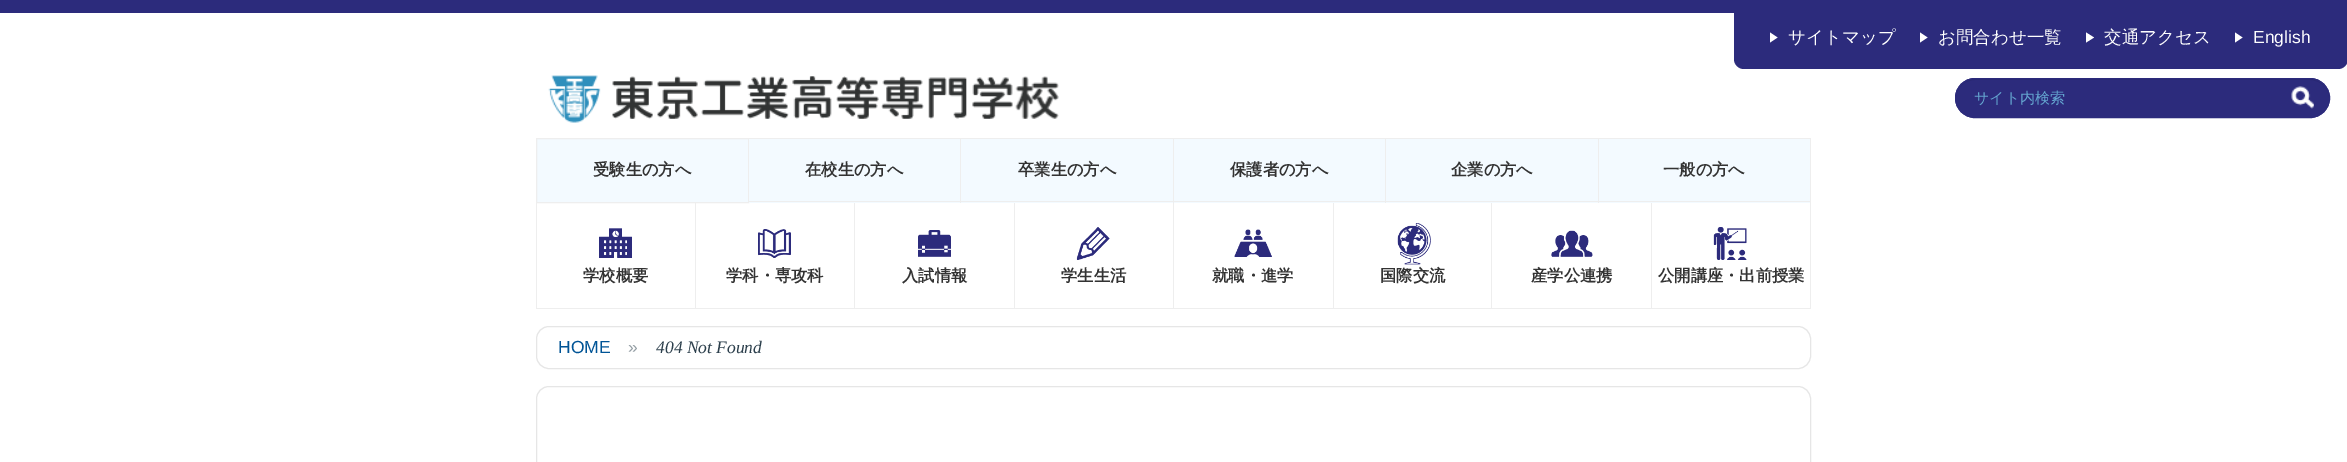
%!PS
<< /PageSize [2347 462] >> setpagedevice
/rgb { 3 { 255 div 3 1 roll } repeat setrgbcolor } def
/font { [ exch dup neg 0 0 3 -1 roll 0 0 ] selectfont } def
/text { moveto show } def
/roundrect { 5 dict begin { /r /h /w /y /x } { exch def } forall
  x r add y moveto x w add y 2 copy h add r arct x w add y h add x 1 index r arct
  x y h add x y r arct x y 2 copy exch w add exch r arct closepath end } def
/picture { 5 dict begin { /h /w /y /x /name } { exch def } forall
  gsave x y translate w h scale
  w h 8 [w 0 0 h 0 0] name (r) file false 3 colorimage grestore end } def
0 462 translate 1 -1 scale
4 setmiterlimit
255 255 255 rgb
0 0 2347 462 rectfill
44 43 124 rgb
0 0 2347 13 rectfill
1734 13 moveto 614 0 rlineto 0 46 rlineto 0 5.5 -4.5 10 -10 10 rcurveto -594 0 rlineto -5.5 0 -10 -4.5 -10 -10 rcurveto closepath fill
255 255 255 rgb
1770 42.5 moveto 0 -10 rlineto 7.5 5 rlineto closepath fill
1920 42.5 moveto 0 -10 rlineto 7.5 5 rlineto closepath fill
2086 42.5 moveto 0 -10 rlineto 8 5 rlineto closepath fill
2235 42.5 moveto 0 -10 rlineto 7.5 5 rlineto closepath fill
44 43 124 rgb
1955 78 375 40 20 roundrect fill
41 40 115 rgb
1975 80 moveto 335 0 rlineto 10 0 19 8 19 18 rcurveto 0 -10 -8 -19 -19 -19 rcurveto -336 0 rlineto -10 0 -18 9 -18 19 rcurveto 0 -10 9 -18 19 -18 rcurveto closepath fill
44 43 124 rgb
1955.5 78.5 374 39 19.5 roundrect stroke
(img_01.rgb) 2291 86 23 23 picture
243 250 255 rgb
536.5 138.5 moveto 212 0 rlineto 0 64 rlineto -212 0 rlineto closepath gsave fill grestore
238 238 238 rgb
stroke
243 250 255 rgb
749 139 211 64 rectfill
238 238 238 rgb
749 138 1062 1 rectfill
960 138 1 65 rectfill
749 201 212 1 rectfill
243 250 255 rgb
961 139 212 64 rectfill
238 238 238 rgb
1173 138 1 171 rectfill
961 201 213 1 rectfill
243 250 255 rgb
1174 139 211 64 rectfill
238 238 238 rgb
1385 138 1 65 rectfill
1174 201 212 1 rectfill
243 250 255 rgb
1386 139 212 64 rectfill
238 238 238 rgb
1598 138 1 65 rectfill
1386 201 213 1 rectfill
243 250 255 rgb
1599 139 211 64 rectfill
238 238 238 rgb
1810 138 1 171 rectfill
1599 201 212 1 rectfill
(img_02.rgb) 599 228 33 30 picture
695 203 1 106 rectfill
536 308 160 1 rectfill
536 203 1 106 rectfill
(img_03.rgb) 758 229 33 29 picture
854 203 1 106 rectfill
696 308 159 1 rectfill
(img_04.rgb) 918 230 33 27 picture
1014 203 1 106 rectfill
855 308 319 1 rectfill
(img_05.rgb) 1076 227 34 33 picture
(img_06.rgb) 1234 229 38 28 picture
1333 203 1 106 rectfill
1174 308 160 1 rectfill
(img_07.rgb) 1397 223 34 42 picture
1491 203 1 106 rectfill
1334 308 159 1 rectfill
(img_08.rgb) 1551 230 42 27 picture
1651 203 1 106 rectfill
1493 308 318 1 rectfill
(img_09.rgb) 1713 227 34 33 picture
(img_10.rgb) 548 75 511 48 picture
230 230 230 rgb
536.5 326.5 1274 42 12.5 roundrect stroke
536.5 386.5 1274 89 12.5 roundrect stroke
/WenQuanYiZenHei-Medium 17.5 font
255 255 255 rgb
(サイトマップ) 1788 43 text
(お問合わせ一覧) 1938 43 text
(交通アクセス) 2104 43 text
/LiberationSans-Regular 17.5 font
(English) 2253 43 text
/WenQuanYiZenHei-Medium 15 font
100 165 208 rgb
(サイト内検索) 1974 103 text
/WenQuanYiZenHei-Bold 16.25 font
51 51 51 rgb
(受験生の方へ) 593 175 text
(在校生の方へ) 805 175 text
(卒業生の方へ) 1018 175 text
(保護者の方へ) 1230 175 text
(企業の方へ) 1451 175 text
(一般の方へ) 1663 175 text
(学校概要) 583 281 text
(学科・専攻科) 726 281 text
(入試情報) 902 281 text
(学生生活) 1061 281 text
(就職・進学) 1212 281 text
(国際交流) 1380 281 text
(産学公連携) 1531 281 text
(公開講座・出前授業) 1658 281 text
/LiberationSans-Regular 17.5 font
0 84 150 rgb
(HOME) 558 353 text
149 159 165 rgb
(») 628 353 text
/LiberationSerif-Italic 17.5 font
44 63 76 rgb
(404 Not Found) 656 353 text
showpage
